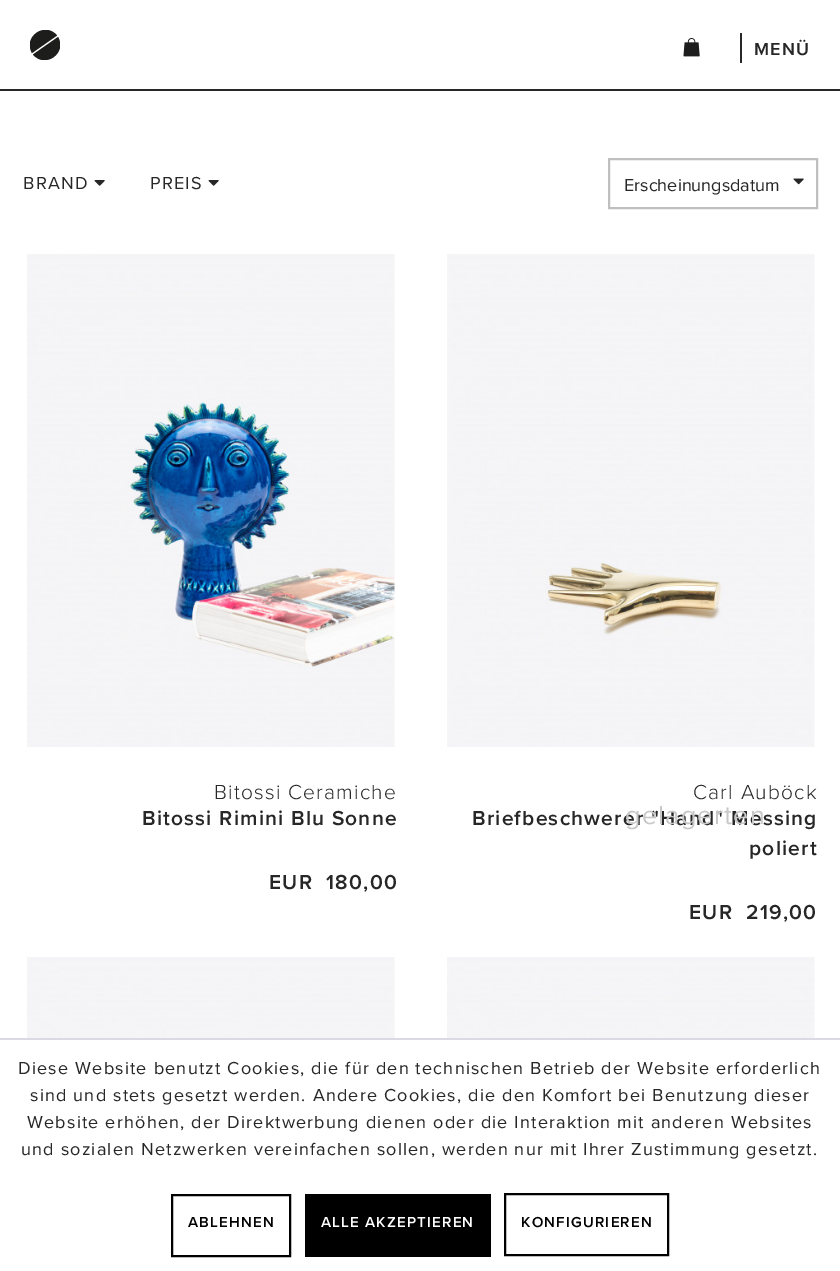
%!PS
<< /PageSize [840 1271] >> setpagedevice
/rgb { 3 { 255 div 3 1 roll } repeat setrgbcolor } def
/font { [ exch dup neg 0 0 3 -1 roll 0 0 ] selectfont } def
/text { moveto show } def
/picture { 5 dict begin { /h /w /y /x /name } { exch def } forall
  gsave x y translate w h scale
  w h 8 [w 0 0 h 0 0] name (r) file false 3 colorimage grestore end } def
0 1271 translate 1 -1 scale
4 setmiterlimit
255 255 255 rgb
0 0 840 1271 rectfill
39 39 39 rgb
0 89 840 2 rectfill
gsave
30 30 30 30 rectclip
29 29 27 rgb
33 54.5 moveto 12 14.5 34.5 -1.5 25 -17.5 rcurveto closepath 57 35.5 moveto -12 -14.5 -34.5 1.5 -25 17.5 rcurveto closepath fill
grestore
(img_01.rgb) 683 38 17 19 picture
740 33 2 30 rectfill
(img_02.rgb) 94 180 11 6 picture
(img_02.rgb) 208 180 11 6 picture
191 191 191 rgb
2 setlinewidth
609 159 208 49 rectstroke
(img_03.rgb) 793 178 11 7 picture
(img_04.rgb) 27 254 368 493 picture
(img_05.rgb) 447 254 368 493 picture
(img_06.rgb) 27 957 368 81 picture
(img_06.rgb) 447 957 368 81 picture
218 218 229 rgb
0 1038 840 2 rectfill
0 0 0 rgb
172 1195 118 61 rectstroke
305 1194 186 63 rectfill
505 1194 163 61 rectstroke
/ProximaNova-SemiBold 18 font
39 39 39 rgb
754 55 moveto 1.2 0 (MENÜ) ashow
/ProximaNova-Regular 18 font
23 189 moveto 1.2 0 (BRAND) ashow
150 189 moveto 1.2 0 (PREIS) ashow
(Erscheinungsdatum) 624 191 text
/ProximaNova-Light 21 font
214 799 moveto 1.2 0 (Bitossi Ceramiche) ashow
/ProximaNova-SemiBold 21 font
142 825 moveto 1.2 0 (Bitossi Rimini Blu Sonne) ashow
269 889 moveto 1.2 0 (EUR  180,00) ashow
/ProximaNova-Light 21 font
693 799 moveto 1.2 0 (Carl Auböck) ashow
/ProximaNova-SemiBold 21 font
472 825 moveto 1.2 0 (Briefbeschwerer "Hand" Messing) ashow
749 855 moveto 1.2 0 (poliert) ashow
689 919 moveto 1.2 0 (EUR  219,00) ashow
/ProximaNova-Regular 27 font
200 200 200 rgb
625 824 moveto 1.2 0 (gelagerten) ashow
/ProximaNova-Regular 18 font
39 39 39 rgb
18 1074 moveto 1.2 0 (Diese Website benutzt Cookies, die für den technischen Betrieb der Website erforderlich) ashow
30 1101 moveto 1.2 0 (sind und stets gesetzt werden. Andere Cookies, die den Komfort bei Benutzung dieser) ashow
27 1128 moveto 1.2 0 (Website erhöhen, der Direktwerbung dienen oder die Interaktion mit anderen Websites) ashow
21 1155 moveto 1.2 0 (und sozialen Netzwerken vereinfachen sollen, werden nur mit Ihrer Zustimmung gesetzt.) ashow
/ProximaNova-SemiBold 15 font
0 0 0 rgb
188 1227 moveto 1.2 0 (ABLEHNEN) ashow
255 255 255 rgb
321 1227 moveto 1.2 0 (ALLE AKZEPTIEREN) ashow
0 0 0 rgb
521 1227 moveto 1.2 0 (KONFIGURIEREN) ashow
showpage
